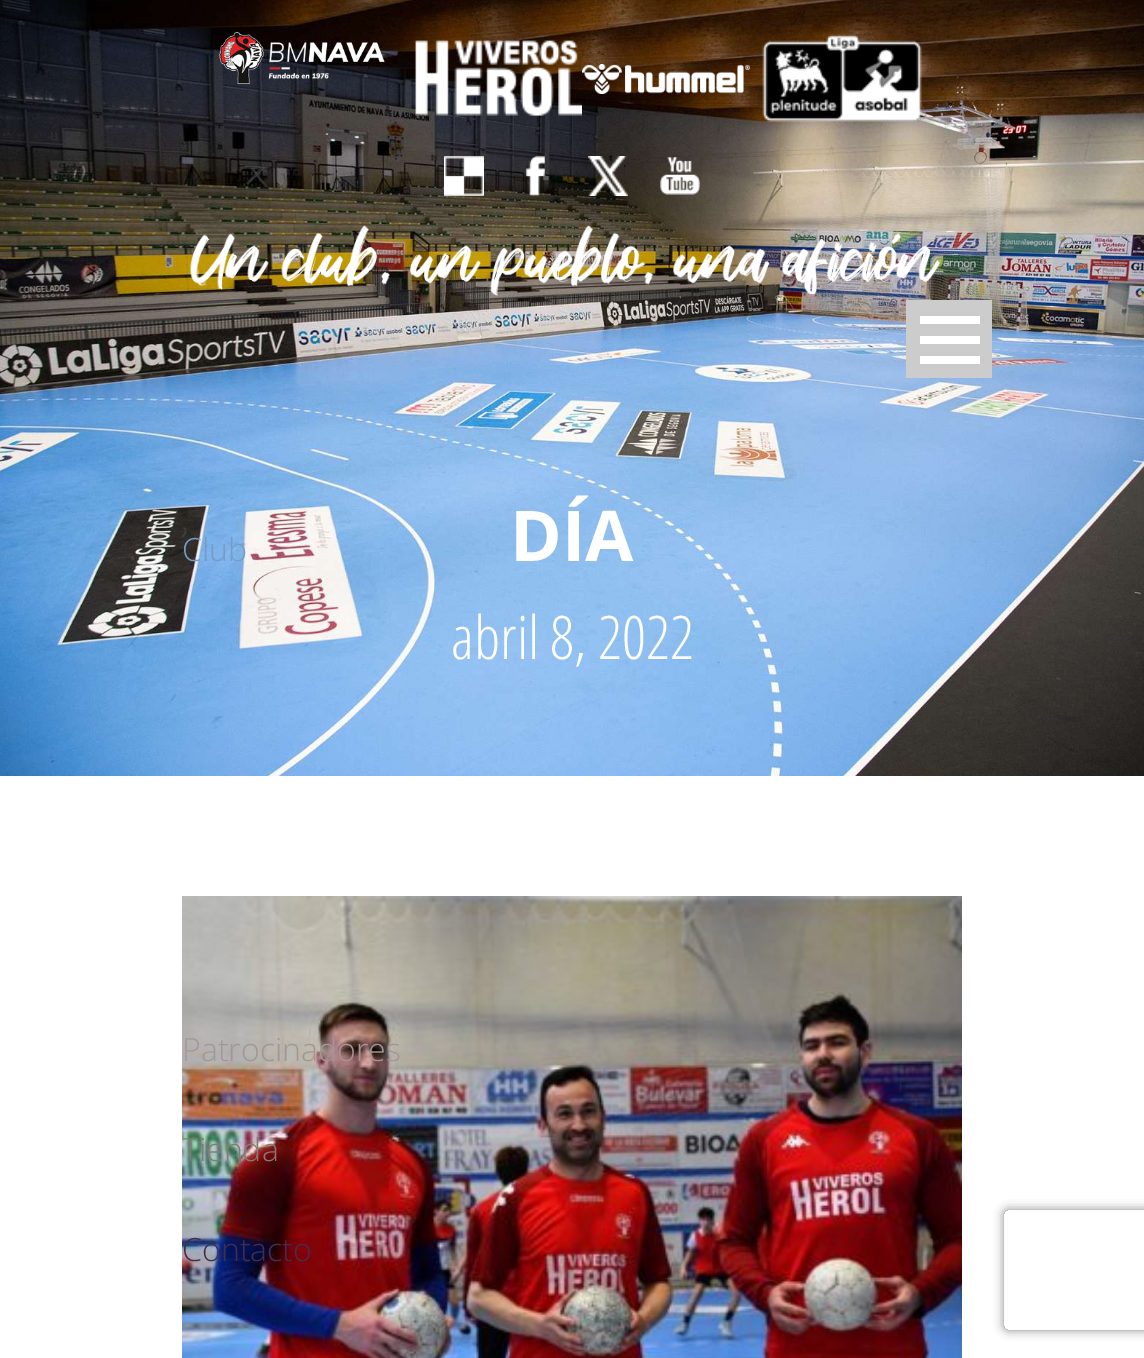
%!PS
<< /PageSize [1144 1358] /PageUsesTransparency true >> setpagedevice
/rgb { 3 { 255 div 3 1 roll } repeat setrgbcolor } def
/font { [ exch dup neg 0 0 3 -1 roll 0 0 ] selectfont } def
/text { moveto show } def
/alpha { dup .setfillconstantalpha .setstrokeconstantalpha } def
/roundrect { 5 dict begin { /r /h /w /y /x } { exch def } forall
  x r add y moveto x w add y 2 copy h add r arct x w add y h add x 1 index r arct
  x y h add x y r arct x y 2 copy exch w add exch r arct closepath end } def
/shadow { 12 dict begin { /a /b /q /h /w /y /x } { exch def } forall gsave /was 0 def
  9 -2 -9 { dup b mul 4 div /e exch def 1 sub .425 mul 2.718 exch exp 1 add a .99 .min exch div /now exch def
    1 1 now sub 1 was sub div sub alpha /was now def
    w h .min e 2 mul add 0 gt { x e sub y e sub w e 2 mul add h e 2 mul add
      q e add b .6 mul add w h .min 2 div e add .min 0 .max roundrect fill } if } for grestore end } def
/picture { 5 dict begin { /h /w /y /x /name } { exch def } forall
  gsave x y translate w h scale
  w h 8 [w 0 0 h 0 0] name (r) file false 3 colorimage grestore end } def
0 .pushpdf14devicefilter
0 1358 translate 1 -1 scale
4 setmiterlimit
255 255 255 rgb
0 0 1144 1358 rectfill
(img_01.rgb) 0 0 1144 776 picture
(img_02.rgb) 219 32 166 52 picture
(img_03.rgb) 415 40 167 76 picture
(img_04.rgb) 582 64 168 30 picture
(img_05.rgb) 762 34 160 88 picture
(img_06.rgb) 444 156 40 40 picture
(img_07.rgb) 525 156 20 40 picture
(img_08.rgb) 588 156 40 40 picture
(img_09.rgb) 660 157 40 38 picture
(img_10.rgb) 190 225 750 71 picture
204 204 204 rgb
906 300 86 78 rectfill
255 255 255 rgb
920 356 60 8 rectfill
920 336 60 8 rectfill
920 316 60 8 rectfill
(img_11.rgb) 182 896 780 462 picture
gsave
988 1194 moveto 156 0 rlineto 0 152 rlineto -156 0 rlineto closepath 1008 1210 moveto 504 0 rlineto 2 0 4 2 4 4 rcurveto 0 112 rlineto 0 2 -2 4 -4 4 rcurveto -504 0 rlineto -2 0 -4 -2 -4 -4 rcurveto 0 -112 rlineto 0 -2 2 -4 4 -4 rcurveto closepath eoclip newpath
128 128 128 rgb
1004 1210 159 120 4 5 1 shadow
grestore
/OpenSans-Light 32 font
118 155 196 rgb
(Club) 182 561 text
163 150 146 rgb
(Patrocinadores) 182 1061 text
131 124 116 rgb
(Tienda) 182 1161 text
68 45 78 rgb
(Contacto) 182 1261 text
/OpenSans-Bold 70 font
255 255 255 rgb
(DÍA) 510 561 text
/OpenSansCondensed-Light 60 font
(abril 8, 2022) 451 659 text
.poppdf14devicefilter showpage
